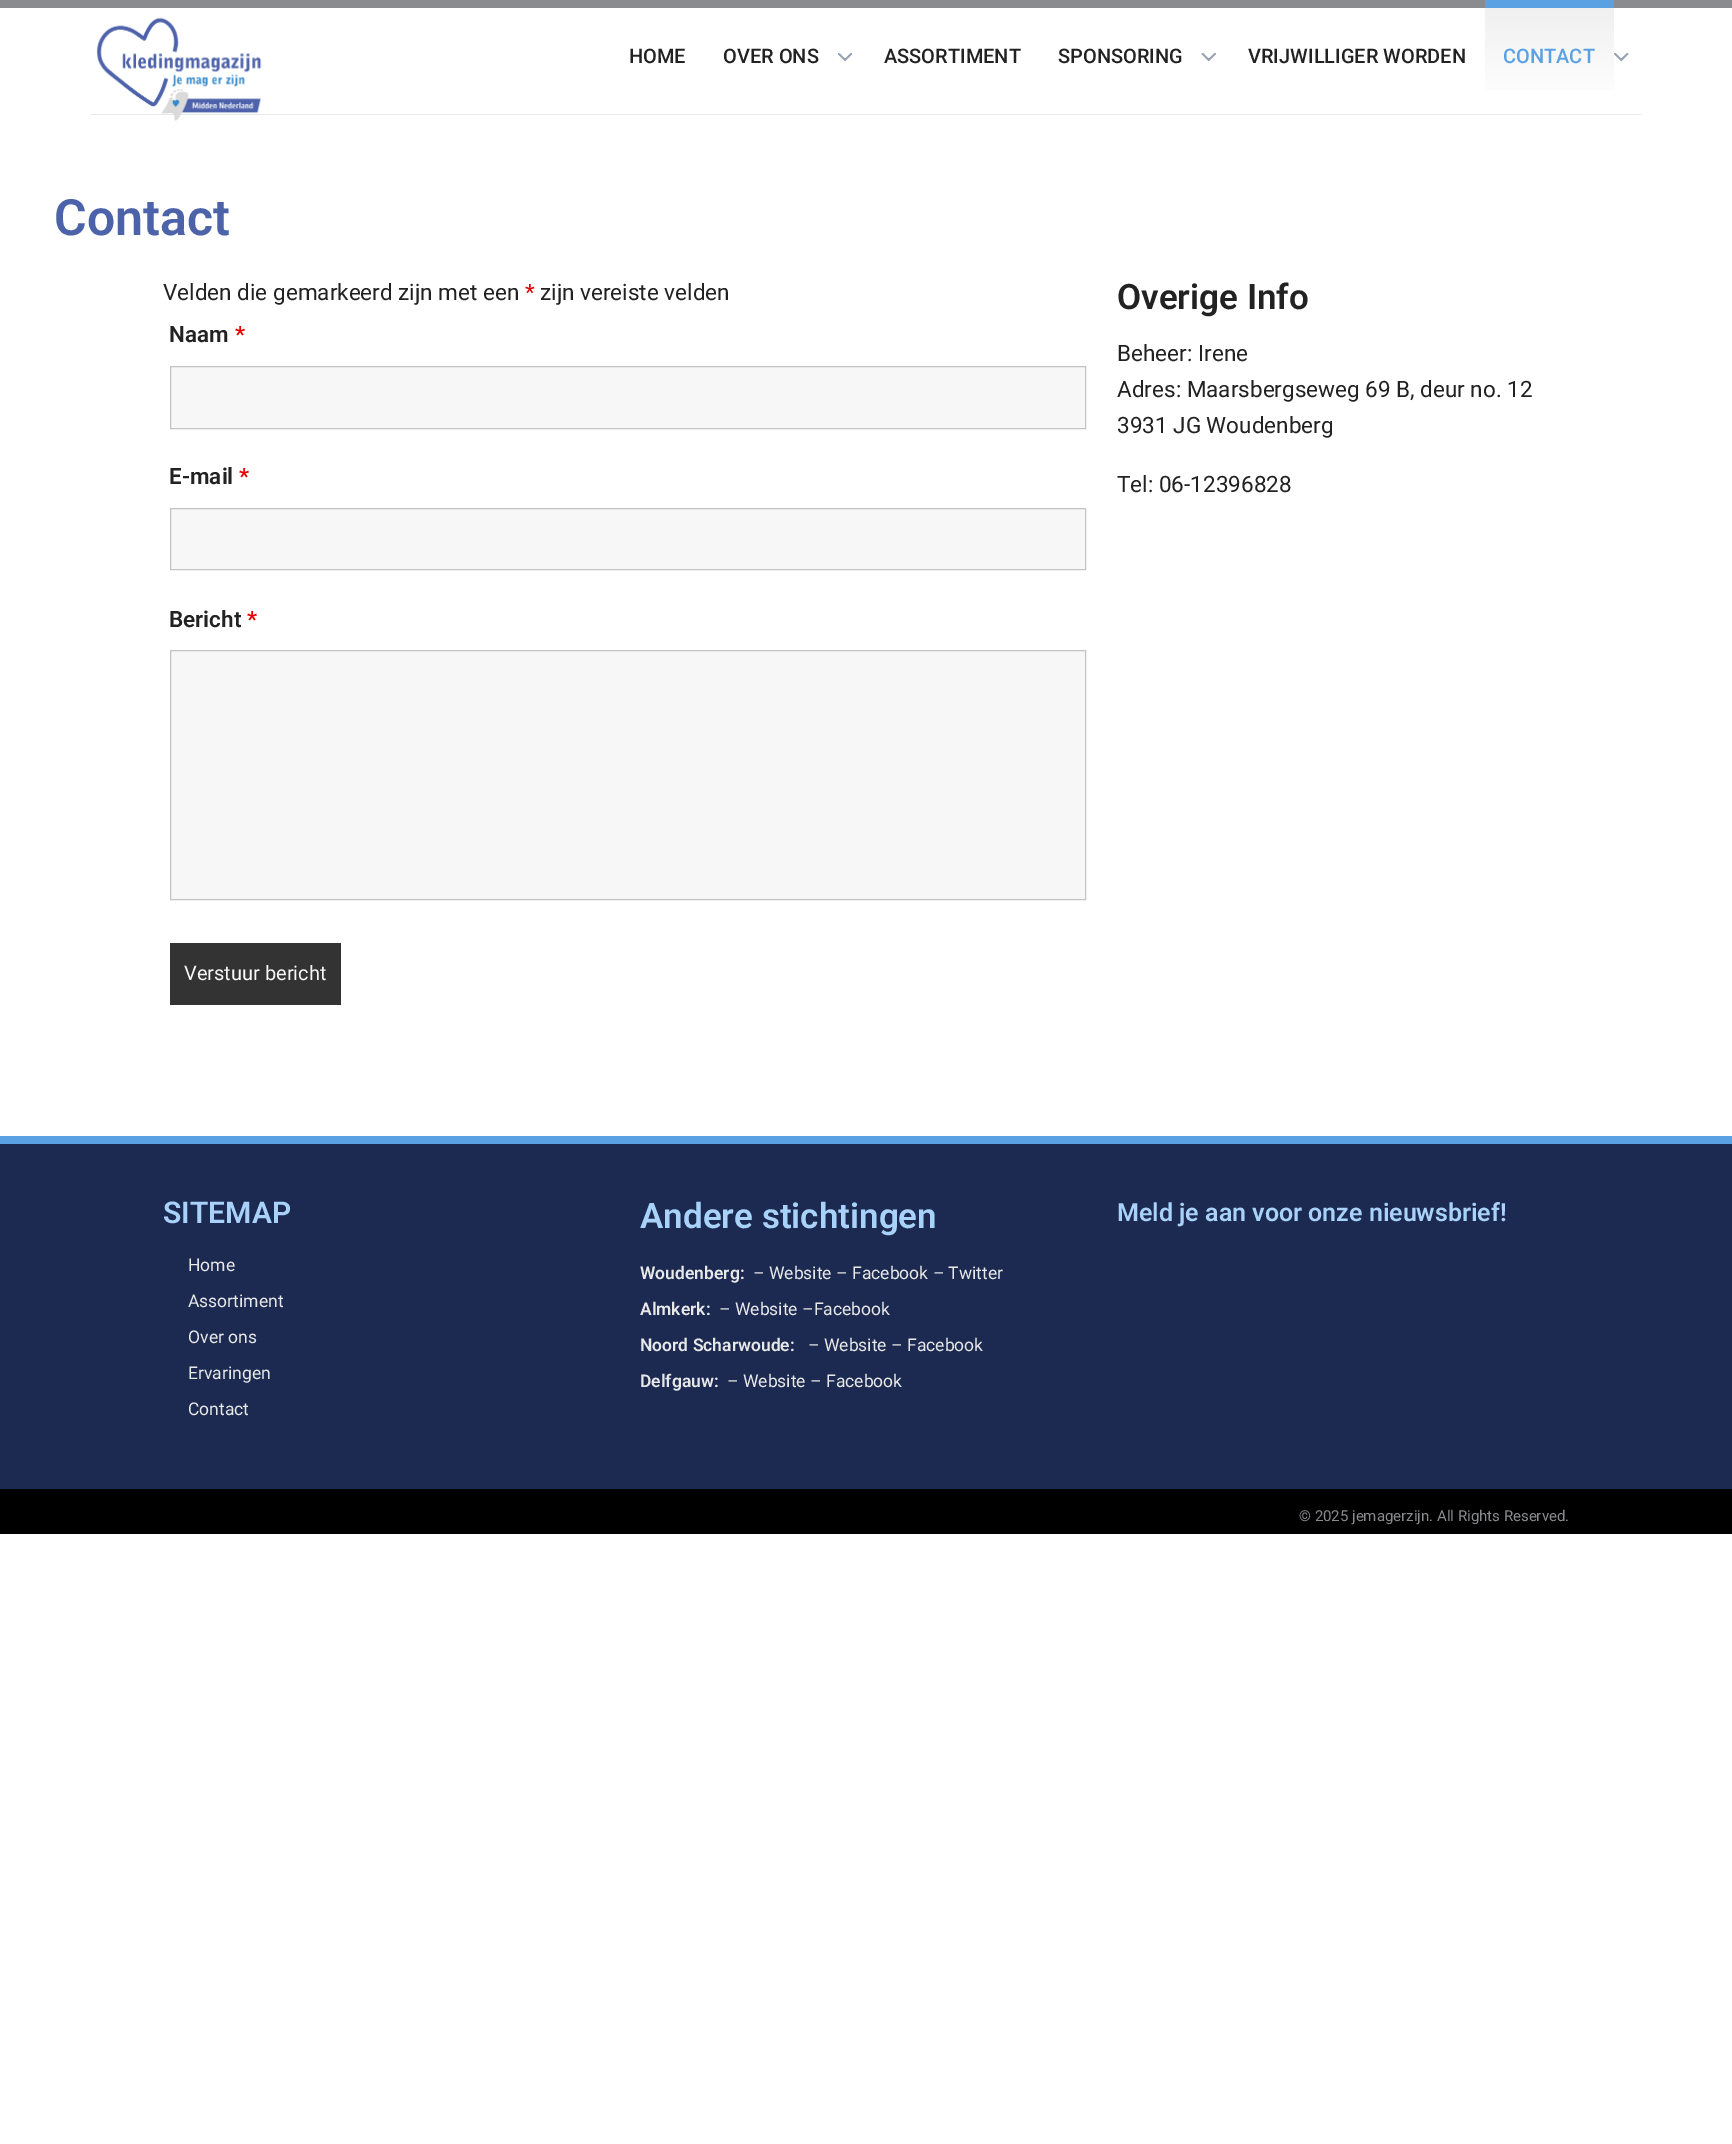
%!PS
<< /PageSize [1732 2144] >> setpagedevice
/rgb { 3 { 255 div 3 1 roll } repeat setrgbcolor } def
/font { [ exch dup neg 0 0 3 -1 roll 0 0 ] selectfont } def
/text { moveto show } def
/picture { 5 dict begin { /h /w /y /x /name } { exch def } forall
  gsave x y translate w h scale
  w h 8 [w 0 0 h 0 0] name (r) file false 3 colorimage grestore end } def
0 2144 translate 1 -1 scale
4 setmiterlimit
255 255 255 rgb
0 0 1732 2144 rectfill
137 139 142 rgb
0 0 1732 8 rectfill
231 232 232 rgb
91 114 1550 1 rectfill
(img_01.rgb) 96 17 166 104 picture
(img_02.rgb) 838 53 15 8 picture
(img_03.rgb) 1201 53 15 8 picture
gsave 1485 8 moveto 129 0 rlineto 0 82 rlineto -129 0 rlineto closepath clip newpath
<< /ShadingType 2 /ColorSpace /DeviceRGB /Coords [1549 7.5 1549 106] /Extend [true true] /Function << /FunctionType 2 /Domain [0 1] /C0 [0.941 0.941 0.941] /C1 [1 1 1] /N 1 >> >> shfill grestore
90 161 227 rgb
1485 0 129 8 rectfill
(img_04.rgb) 1614 53 15 8 picture
247 247 247 rgb
170.5 366.5 moveto 915 0 rlineto 0 62 rlineto -915 0 rlineto closepath gsave fill grestore
196 196 196 rgb
stroke
247 247 247 rgb
170.5 508.5 moveto 915 0 rlineto 0 61 rlineto -915 0 rlineto closepath gsave fill grestore
196 196 196 rgb
stroke
247 247 247 rgb
170.5 650.5 moveto 915 0 rlineto 0 249 rlineto -915 0 rlineto closepath gsave fill grestore
196 196 196 rgb
stroke
51 51 51 rgb
170 943 171 62 rectfill
28 41 80 rgb
0 1144 1732 345 rectfill
90 161 227 rgb
0 1136 1732 8 rectfill
0 0 0 rgb
0 1489 1732 45 rectfill
/Roboto-Medium 20 font
34 34 34 rgb
(HOME) 629 63 text
(OVER ONS) 723 63 text
(ASSORTIMENT) 884 63 text
(SPONSORING) 1058 63 text
(VRIJWILLIGER WORDEN) 1248 63 text
90 161 227 rgb
(CONTACT) 1503 63 text
/Roboto-SemiBold 50 font
76 99 169 rgb
(Contact) 54 235 text
/Roboto-Regular 22.5 font
34 34 34 rgb
(Velden die gemarkeerd zijn met een) 163 300 text
232 0 0 rgb
(*) 525 300 text
34 34 34 rgb
(zijn vereiste velden) 540 300 text
/Roboto-SemiBold 22.5 font
(Naam) 169 342 text
232 0 0 rgb
(*) 235 342 text
34 34 34 rgb
(E-mail) 169 484 text
232 0 0 rgb
(*) 239 484 text
34 34 34 rgb
(Bericht) 169 627 text
232 0 0 rgb
(*) 247 627 text
/Roboto-Regular 20 font
247 247 247 rgb
(Verstuur bericht) 184 980 text
/Roboto-SemiBold 35 font
34 34 34 rgb
(Overige Info) 1117 309 text
/Roboto-Regular 22.5 font
(Beheer: Irene) 1117 361 text
(Adres: Maarsbergseweg 69 B, deur no. 12) 1117 397 text
(3931 JG Woudenberg) 1117 433 text
(Tel: 06-12396828) 1117 492 text
/Roboto-SemiBold 30 font
168 210 250 rgb
(SITEMAP) 163 1223 text
/Roboto-Regular 17.5 font
231 232 232 rgb
(Home) 188 1271 text
(Assortiment) 188 1307 text
(Over ons) 188 1343 text
(Ervaringen) 188 1379 text
(Contact) 188 1415 text
/Roboto-SemiBold 35 font
168 210 250 rgb
(Andere stichtingen) 640 1228 text
/Roboto-SemiBold 17.5 font
231 232 232 rgb
(Woudenberg:) 640 1279 text
/Roboto-Regular 17.5 font
(– Website – Facebook – Twitter) 753 1279 text
/Roboto-SemiBold 17.5 font
(Almkerk:) 640 1315 text
/Roboto-Regular 17.5 font
(– Website –Facebook) 719 1315 text
/Roboto-SemiBold 17.5 font
(Noord Scharwoude:) 640 1351 text
/Roboto-Regular 17.5 font
(– Website – Facebook) 808 1351 text
/Roboto-SemiBold 17.5 font
(Delfgauw:) 640 1387 text
/Roboto-Regular 17.5 font
(– Website – Facebook) 727 1387 text
/Roboto-SemiBold 25 font
168 210 250 rgb
(Meld je aan voor onze nieuwsbrief!) 1117 1221 text
/Roboto-Regular 15 font
137 139 142 rgb
(© 2025 jemagerzijn. All Rights Reserved.) 1299 1521 text
showpage
